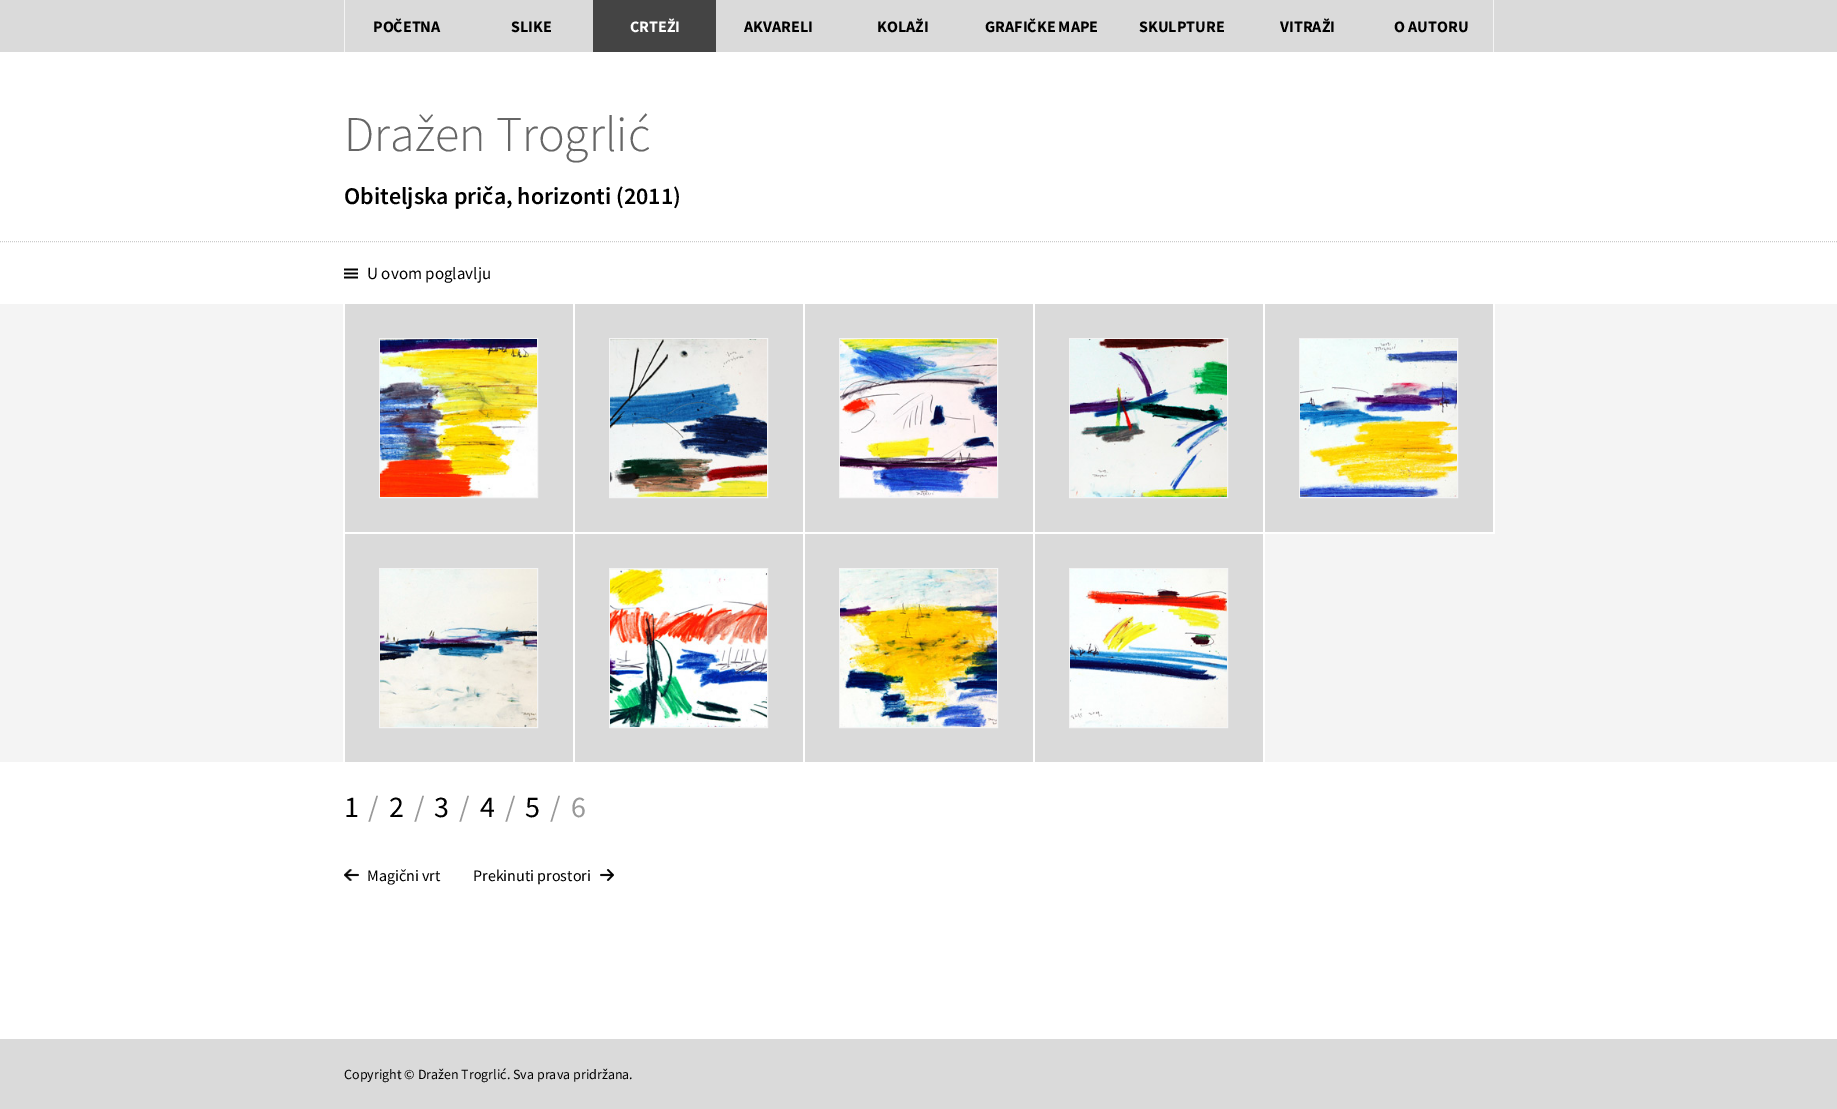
%!PS
<< /PageSize [1837 1109] >> setpagedevice
/rgb { 3 { 255 div 3 1 roll } repeat setrgbcolor } def
/font { [ exch dup neg 0 0 3 -1 roll 0 0 ] selectfont } def
/text { moveto show } def
/picture { 5 dict begin { /h /w /y /x /name } { exch def } forall
  gsave x y translate w h scale
  w h 8 [w 0 0 h 0 0] name (r) file false 3 colorimage grestore end } def
0 1109 translate 1 -1 scale
4 setmiterlimit
255 255 255 rgb
0 0 1837 1109 rectfill
218 218 218 rgb
0 0 1837 52 rectfill
244 244 244 rgb
1493 0 1 52 rectfill
344 0 1 52 rectfill
68 68 68 rgb
593 0 123 52 rectfill
204 204 204 rgb
[1 1] 0 setdash
0 241.5 moveto 1837 0 rlineto stroke
(img_01.rgb) 344 268 14 11 picture
244 244 244 rgb
0 304 1837 458 rectfill
255 255 255 rgb
343 304 2 460 rectfill
218 218 218 rgb
345 304 228 228 rectfill
255 255 255 rgb
573 304 2 460 rectfill
345 532 230 2 rectfill
244 244 244 rgb
[] 0 setdash
379.5 338.5 158 159 rectstroke
(img_02.rgb) 380 339 157 158 picture
218 218 218 rgb
575 304 228 228 rectfill
255 255 255 rgb
803 304 2 460 rectfill
575 532 230 2 rectfill
244 244 244 rgb
609.5 338.5 158 159 rectstroke
(img_03.rgb) 610 339 157 158 picture
218 218 218 rgb
805 304 228 228 rectfill
255 255 255 rgb
1033 304 2 460 rectfill
805 532 230 2 rectfill
244 244 244 rgb
839.5 338.5 158 159 rectstroke
(img_04.rgb) 840 339 157 158 picture
218 218 218 rgb
1035 304 228 228 rectfill
255 255 255 rgb
1263 304 2 460 rectfill
1035 532 230 2 rectfill
244 244 244 rgb
1069.5 338.5 158 159 rectstroke
(img_05.rgb) 1070 339 157 158 picture
218 218 218 rgb
1265 304 228 228 rectfill
255 255 255 rgb
1493 304 2 230 rectfill
1265 532 230 2 rectfill
244 244 244 rgb
1299.5 338.5 158 159 rectstroke
(img_06.rgb) 1300 339 157 158 picture
218 218 218 rgb
345 534 228 228 rectfill
244 244 244 rgb
379.5 568.5 158 159 rectstroke
(img_07.rgb) 380 569 157 158 picture
218 218 218 rgb
575 534 228 228 rectfill
244 244 244 rgb
609.5 568.5 158 159 rectstroke
(img_08.rgb) 610 569 157 158 picture
218 218 218 rgb
805 534 228 228 rectfill
244 244 244 rgb
839.5 568.5 158 159 rectstroke
(img_09.rgb) 840 569 157 158 picture
218 218 218 rgb
1035 534 228 228 rectfill
244 244 244 rgb
1069.5 568.5 158 159 rectstroke
(img_10.rgb) 1070 569 157 158 picture
(img_11.rgb) 344 869 15 12 picture
(img_12.rgb) 600 869 14 12 picture
218 218 218 rgb
0 1039 1837 70 rectfill
/SourceSansPro-Bold 16 font
0 0 0 rgb
(POČETNA) 373 32 text
(SLIKE) 511 32 text
255 255 255 rgb
(CRTEŽI) 630 32 text
0 0 0 rgb
(AKVARELI) 744 32 text
(KOLAŽI) 877 32 text
(GRAFIČKE MAPE) 985 32 text
(SKULPTURE) 1139 32 text
(VITRAŽI) 1280 32 text
(O AUTORU) 1394 32 text
/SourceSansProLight-Light 50 font
102 102 102 rgb
(Dražen Trogrlić) 344 151 text
/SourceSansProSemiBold-SemiBold 24 font
0 0 0 rgb
(Obiteljska priča, horizonti \(2011\)) 344 204 text
/SourceSansPro-Regular 17 font
(U ovom poglavlju) 367 279 text
/SourceSansPro-Regular 30 font
(1) 344 817 text
153 153 153 rgb
(/) 368 817 text
0 0 0 rgb
(2) 389 817 text
153 153 153 rgb
(/) 414 817 text
0 0 0 rgb
(3) 434 817 text
153 153 153 rgb
(/) 459 817 text
0 0 0 rgb
(4) 480 817 text
153 153 153 rgb
(/) 505 817 text
0 0 0 rgb
(5) 525 817 text
153 153 153 rgb
(/) 550 817 text
(6) 571 817 text
/SourceSansPro-Regular 16 font
0 0 0 rgb
(Magični vrt) 367 881 text
(Prekinuti prostori) 473 881 text
/SourceSansPro-Regular 14 font
(Copyright © Dražen Trogrlić. Sva prava pridržana.) 344 1079 text
showpage
